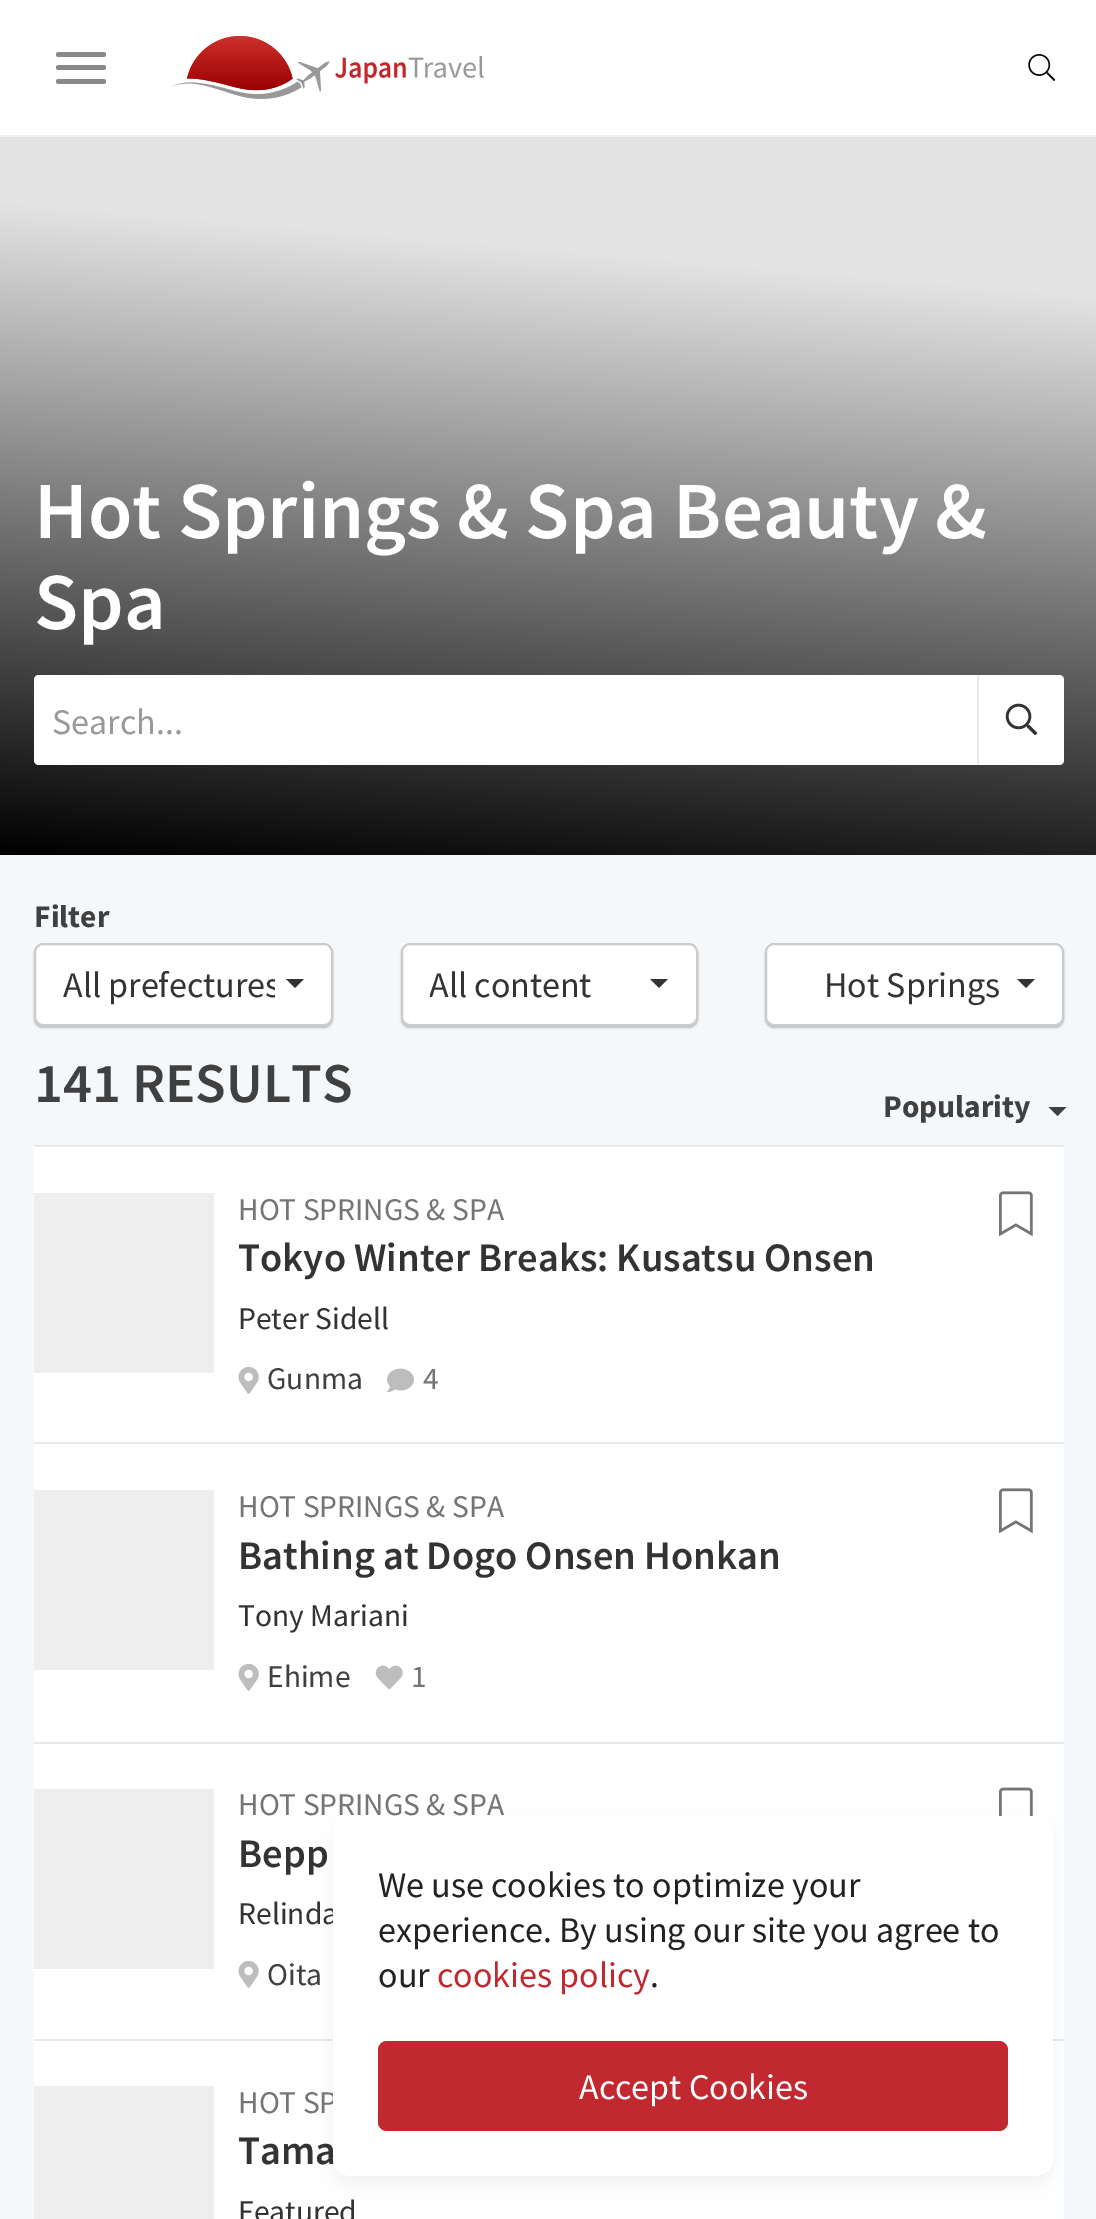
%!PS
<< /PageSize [1096 2219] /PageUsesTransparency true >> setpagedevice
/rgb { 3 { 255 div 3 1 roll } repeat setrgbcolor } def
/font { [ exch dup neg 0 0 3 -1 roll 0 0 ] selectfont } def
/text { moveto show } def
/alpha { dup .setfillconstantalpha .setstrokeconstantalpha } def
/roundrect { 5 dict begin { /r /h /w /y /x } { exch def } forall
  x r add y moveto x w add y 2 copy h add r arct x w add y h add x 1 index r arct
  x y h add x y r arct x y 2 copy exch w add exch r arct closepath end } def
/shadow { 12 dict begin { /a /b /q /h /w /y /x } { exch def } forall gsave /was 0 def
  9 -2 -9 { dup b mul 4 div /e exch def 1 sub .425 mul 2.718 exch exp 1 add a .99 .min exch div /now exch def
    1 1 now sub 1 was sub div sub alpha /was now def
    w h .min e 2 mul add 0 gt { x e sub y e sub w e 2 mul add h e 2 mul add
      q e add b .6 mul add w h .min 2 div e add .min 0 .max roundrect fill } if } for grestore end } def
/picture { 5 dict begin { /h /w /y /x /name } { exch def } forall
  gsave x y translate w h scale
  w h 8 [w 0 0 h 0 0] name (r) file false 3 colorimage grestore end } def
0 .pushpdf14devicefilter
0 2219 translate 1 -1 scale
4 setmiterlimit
245 248 250 rgb
0 0 1096 2219 rectfill
255 255 255 rgb
0 0 1096 135 rectfill
237 240 244 rgb
0 135 1096 2 rectfill
136 136 136 rgb
56 52 50 5 2.5 roundrect fill
56 65 50 5 2.5 roundrect fill
56 79 50 5 2.5 roundrect fill
(img_01.rgb) 170 36 314 63 picture
(img_02.rgb) 1028 54 28 27 picture
gsave 0 137 moveto 1096 0 rlineto 0 718 rlineto -1096 0 rlineto closepath clip newpath
<< /ShadingType 2 /ColorSpace /DeviceRGB /Coords [514 900 584 90] /Extend [true true] /Function << /FunctionType 3 /Domain [0 1] /Functions [<< /FunctionType 2 /Domain [0 1] /C0 [0 0 0] /C1 [0.89 0.89 0.89] /N 1 >> << /FunctionType 2 /Domain [0 1] /C0 [0.89 0.89 0.89] /C1 [0.89 0.89 0.89] /N 1 >>] /Bounds [0.8] /Encode [0 1 0 1] >> >> shfill grestore
255 255 255 rgb
39 675 moveto 938 0 rlineto 0 90 rlineto -938 0 rlineto -3 0 -5 -2 -5 -5 rcurveto 0 -80 rlineto 0 -3 2 -5 5 -5 rcurveto closepath fill
977 675 moveto 82 0 rlineto 3 0 5 2 5 5 rcurveto 0 80 rlineto 0 3 -2 5 -5 5 rcurveto -82 0 rlineto closepath fill
233 233 233 rgb
977 675 2 90 rectfill
(img_03.rgb) 1005 703 33 33 picture
255 255 255 rgb
34 943 299 76 5 roundrect fill
128 128 128 rgb
34 945 299 83 9 1 0.5 shadow
255 255 255 rgb
35 944 297 81 8 roundrect gsave fill grestore
204 204 204 rgb
2 setlinewidth
stroke
51 51 51 rgb
286 979 moveto 18 0 rlineto -9 9 rlineto closepath fill
255 255 255 rgb
401 943 297 76 5 roundrect fill
128 128 128 rgb
401 945 297 83 9 1 0.5 shadow
255 255 255 rgb
402 944 295 81 8 roundrect gsave fill grestore
204 204 204 rgb
stroke
51 51 51 rgb
650 979 moveto 18 0 rlineto -9 9 rlineto closepath fill
255 255 255 rgb
765 943 299 76 5 roundrect fill
128 128 128 rgb
765 945 299 83 9 1 0.5 shadow
255 255 255 rgb
766 944 297 81 8 roundrect gsave fill grestore
204 204 204 rgb
stroke
51 51 51 rgb
1017 979 moveto 18 0 rlineto -9 9 rlineto closepath fill
64 64 64 rgb
1048.5 1107 moveto 18 0 rlineto -9 9 rlineto closepath fill
255 255 255 rgb
34 1147 1030 295 rectfill
233 233 233 rgb
34 1145 1030 2 rectfill
238 238 238 rgb
34 1193 180 180 rectfill
(img_04.rgb) 999 1191 34 46 picture
(img_05.rgb) 238 1366 21 28 picture
(img_06.rgb) 387 1368 27 25 picture
255 255 255 rgb
34 1444 1030 298 rectfill
233 233 233 rgb
34 1442 1030 2 rectfill
238 238 238 rgb
34 1490 180 180 rectfill
(img_04.rgb) 999 1488 34 46 picture
(img_05.rgb) 238 1663 21 28 picture
(img_07.rgb) 375 1665 28 25 picture
255 255 255 rgb
34 1744 1030 295 rectfill
233 233 233 rgb
34 1742 1030 2 rectfill
238 238 238 rgb
34 1789 180 180 rectfill
(img_08.rgb) 999 1787 34 29 picture
(img_05.rgb) 238 1960 21 28 picture
255 255 255 rgb
34 2041 1030 178 rectfill
233 233 233 rgb
34 2039 1030 2 rectfill
238 238 238 rgb
34 2086 180 133 rectfill
0 0 0 rgb
333 1825 720 360 18 10 0.05 shadow
/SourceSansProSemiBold-SemiBold 81 font
255 255 255 rgb
(Hot Springs & Spa Beauty &) 34 538 text
(Spa) 34 629 text
/SourceSansPro-Regular 36 font
153 153 153 rgb
(Search...) 52 734 text
/SourceSansPro-Bold 31.5 font
64 64 64 rgb
(Filter) 34 927 text
gsave
63 959 212 51 rectclip
/SourceSansPro-Regular 36 font
51 51 51 rgb
(All prefectures) 63 997 text
grestore
gsave
430 959 209 51 rectclip
/SourceSansPro-Regular 36 font
51 51 51 rgb
(All content) 429 997 text
grestore
/SourceSansPro-Regular 36 font
51 51 51 rgb
(Hot Springs) 824 997 text
/SourceSansProSemiBold-SemiBold 56.25 font
64 64 64 rgb
(141 RESULTS) 34 1102 text
/SourceSansPro-Bold 31.5 font
(Popularity) 883 1117 text
/SourceSansPro-Regular 31.5 font
117 117 117 rgb
(HOT SPRINGS & SPA) 238 1220 text
/SourceSansProSemiBold-SemiBold 40.5 font
51 51 51 rgb
(Tokyo Winter Breaks: Kusatsu Onsen) 238 1271 text
/SourceSansPro-Regular 31.5 font
(Peter Sidell) 238 1329 text
64 64 64 rgb
(Gunma) 267 1389 text
117 117 117 rgb
(4) 423 1389 text
(HOT SPRINGS & SPA) 238 1517 text
/SourceSansProSemiBold-SemiBold 40.5 font
51 51 51 rgb
(Bathing at Dogo Onsen Honkan) 238 1569 text
/SourceSansPro-Regular 31.5 font
(Tony Mariani) 238 1626 text
64 64 64 rgb
(Ehime) 267 1687 text
117 117 117 rgb
(1) 411 1687 text
(HOT SPRINGS & SPA) 238 1815 text
/SourceSansProSemiBold-SemiBold 40.5 font
51 51 51 rgb
(Bepp) 238 1867 text
/SourceSansPro-Regular 31.5 font
(Relinda) 238 1924 text
64 64 64 rgb
(Oita) 267 1985 text
117 117 117 rgb
(HOT SP) 238 2113 text
/SourceSansProSemiBold-SemiBold 40.5 font
51 51 51 rgb
(Tama) 238 2164 text
/SourceSansPro-Regular 31.5 font
(Featured) 238 2222 text
255 255 255 rgb
333 1816 720 360 18 roundrect fill
/SourceSansPro-Regular 36 font
34 34 34 rgb
(We use cookies to optimize your) 378 1897 text
(experience. By using our site you agree to) 378 1942 text
(our) 378 1987 text
193 40 47 rgb
(cookies policy) 437 1987 text
34 34 34 rgb
(.) 650 1987 text
193 40 47 rgb
378 2041 630 90 9 roundrect fill
255 255 255 rgb
(Accept Cookies) 579 2099 text
.poppdf14devicefilter showpage
